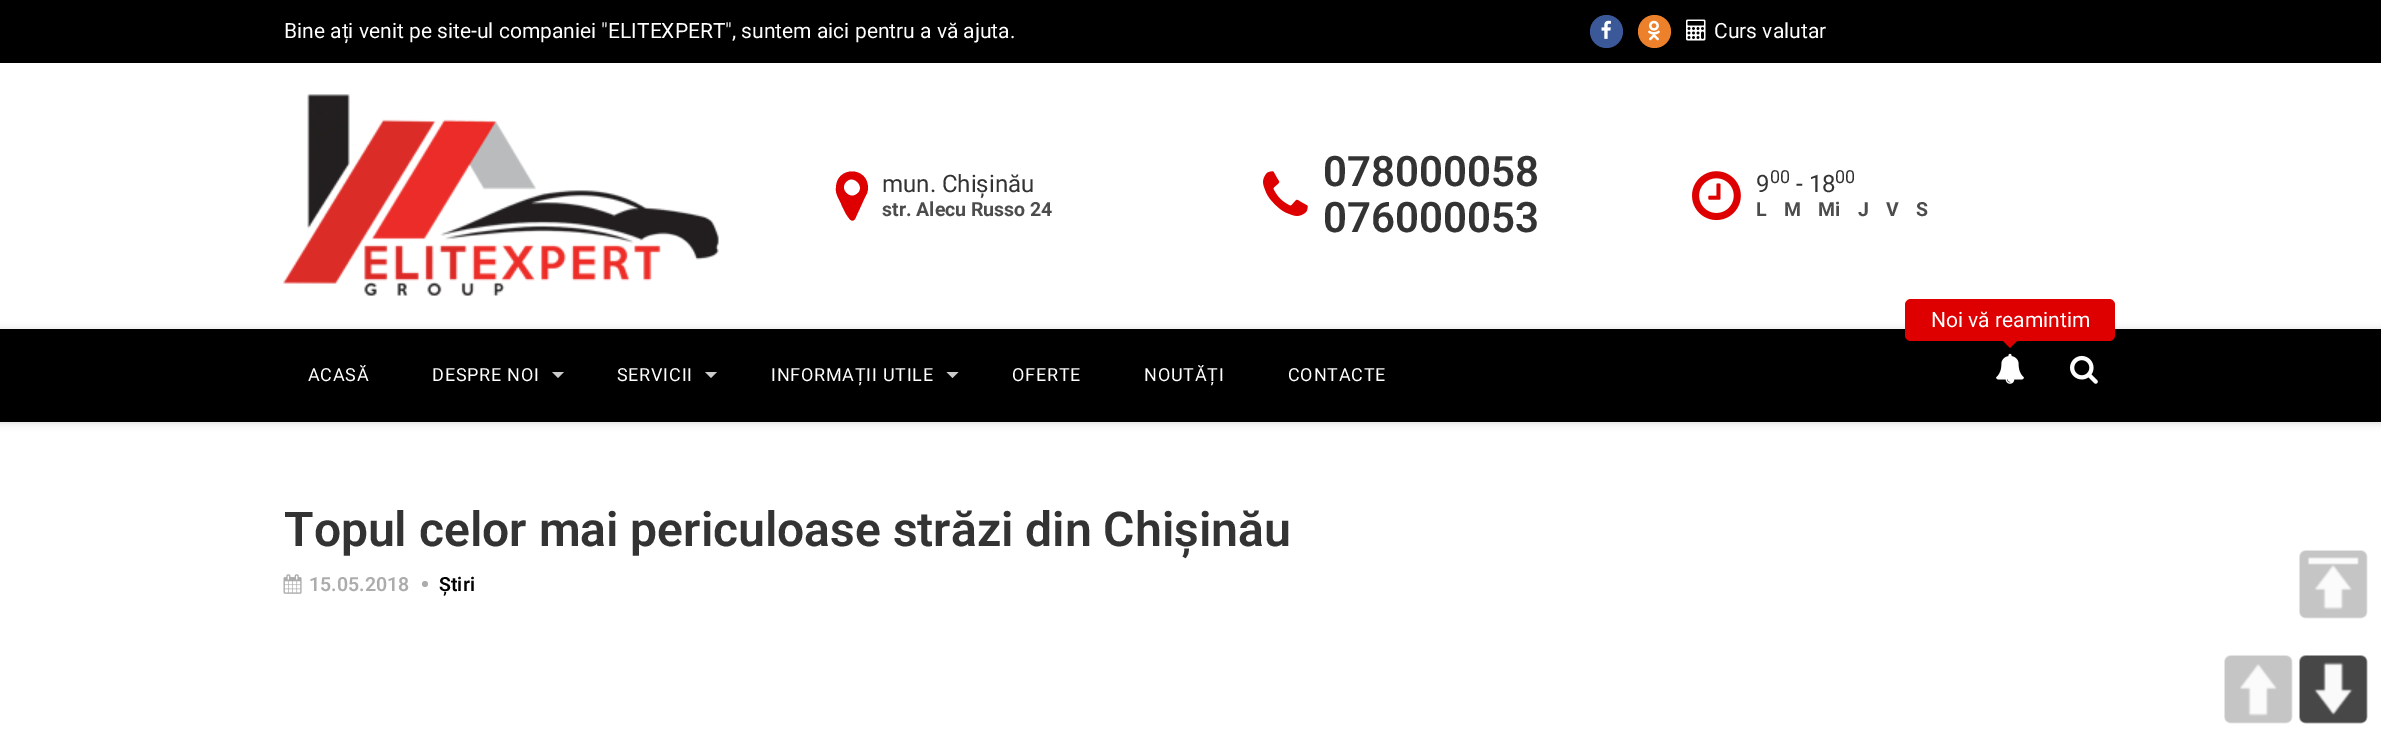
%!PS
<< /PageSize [2381 738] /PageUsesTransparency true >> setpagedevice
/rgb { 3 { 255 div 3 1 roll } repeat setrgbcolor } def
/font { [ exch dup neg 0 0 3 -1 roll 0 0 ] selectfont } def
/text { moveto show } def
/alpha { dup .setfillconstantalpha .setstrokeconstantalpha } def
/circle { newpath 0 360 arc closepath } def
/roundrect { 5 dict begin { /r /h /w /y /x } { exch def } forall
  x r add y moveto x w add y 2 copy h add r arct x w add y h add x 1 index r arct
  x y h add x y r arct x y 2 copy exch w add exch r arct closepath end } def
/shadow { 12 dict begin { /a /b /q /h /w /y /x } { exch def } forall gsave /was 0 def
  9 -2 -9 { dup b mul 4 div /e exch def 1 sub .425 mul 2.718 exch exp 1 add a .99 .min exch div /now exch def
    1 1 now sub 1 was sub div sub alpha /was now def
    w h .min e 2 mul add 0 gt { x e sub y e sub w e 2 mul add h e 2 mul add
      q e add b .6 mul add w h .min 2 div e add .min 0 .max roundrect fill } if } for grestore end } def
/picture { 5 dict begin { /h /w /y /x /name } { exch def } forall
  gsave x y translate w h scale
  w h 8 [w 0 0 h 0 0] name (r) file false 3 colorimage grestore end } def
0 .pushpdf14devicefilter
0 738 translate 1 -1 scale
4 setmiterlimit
255 255 255 rgb
0 0 2381 738 rectfill
0 0 0 rgb
0 0 2381 63 rectfill
59 89 152 rgb
1606.5 31.5 16.5 circle fill
(img_01.rgb) 1601 20 10 19 picture
237 129 43 rgb
1654.5 31.5 16.5 circle fill
(img_02.rgb) 1648 20 12 21 picture
(img_03.rgb) 1686 19 20 22 picture
(img_04.rgb) 283 94 436 202 picture
222 0 0 rgb
858 193 moveto 7 -7 -5 -19 -12 -11 rcurveto -7 7 4 19 12 11 rcurveto closepath 868 188 moveto 0 3 -1 6 -3 9 rcurveto -10 22 rlineto -4 5 -7 -3 -9 -5 rcurveto -4 -8 rlineto -2 -6 -7 -12 -6 -18 rcurveto 0 -22 32 -22 32 0 rcurveto closepath fill
(img_05.rgb) 1263 171 45 45 picture
(img_06.rgb) 1692 171 49 50 picture
0 0 0 rgb
0 330 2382 93 0 4 0.15 shadow
0 329 2381 93 rectfill
222 0 0 rgb
1905 299 210 42 6 roundrect fill
1995 333 moveto 30 0 rlineto -15 15 rlineto closepath fill
(img_07.rgb) 1996 353 28 31 picture
(img_08.rgb) 2070 355 28 29 picture
204 204 204 rgb
552 372 moveto 12 0 rlineto -6 6 rlineto closepath fill
705 372 moveto 12 0 rlineto -6 6 rlineto closepath fill
946.5 372 moveto 12 0 rlineto -6 6 rlineto closepath fill
(img_09.rgb) 283 574 19 20 picture
172 172 172 rgb
425 584 3 circle fill
250 250 250 rgb
2300 551 67 67 6 roundrect fill
(img_10.rgb) 2299 550 69 69 picture
2225 656 67 67 6 roundrect fill
(img_11.rgb) 2224 655 69 69 picture
239 239 239 rgb
2300 656 67 67 6 roundrect fill
(img_12.rgb) 2299 655 69 69 picture
/Roboto-Regular 21 font
255 255 255 rgb
(Bine ați venit pe site-ul companiei "ELITEXPERT", suntem aici pentru a vă ajuta.) 284 38 text
(Curs valutar) 1714 38 text
/Roboto-Regular 24 font
51 51 51 rgb
(mun. Chișinău) 882 192 text
/Roboto-Bold 19.5 font
76 76 76 rgb
(str. Alecu Russo 24) 882 216 text
/Roboto-SemiBold 42 font
51 51 51 rgb
(078000058) 1323 186 text
(076000053) 1323 232 text
/Roboto-Regular 24 font
(9) 1756 192 text
/Roboto-Regular 18 font
(00) 1770 183 text
/Roboto-Regular 24 font
(- 18) 1796 192 text
/Roboto-Regular 18 font
(00) 1835 183 text
/Roboto-Bold 19.5 font
76 76 76 rgb
(L) 1756 216 text
(M) 1784 216 text
(Mi) 1818 216 text
(J) 1858 216 text
(V) 1886 216 text
(S) 1916 216 text
/Roboto-Regular 21 font
255 255 255 rgb
(Noi vă reamintim) 1931 327 text
/Roboto-Regular 18 font
308 381 moveto 0.75 0 (ACASĂ) ashow
432 381 moveto 0.75 0 (DESPRE NOI) ashow
617 381 moveto 0.75 0 (SERVICII) ashow
771 381 moveto 0.75 0 (INFORMAȚII UTILE) ashow
1012 381 moveto 0.75 0 (OFERTE) ashow
1144 381 moveto 0.75 0 (NOUTĂȚI) ashow
1288 381 moveto 0.75 0 (CONTACTE) ashow
/Roboto-SemiBold 48 font
51 51 51 rgb
(Topul celor mai periculoase străzi din Chișinău) 284 546 text
/Roboto-SemiBold 19.5 font
172 172 172 rgb
(15.05.2018) 309 591 text
0 0 0 rgb
(Știri) 439 591 text
.poppdf14devicefilter showpage
